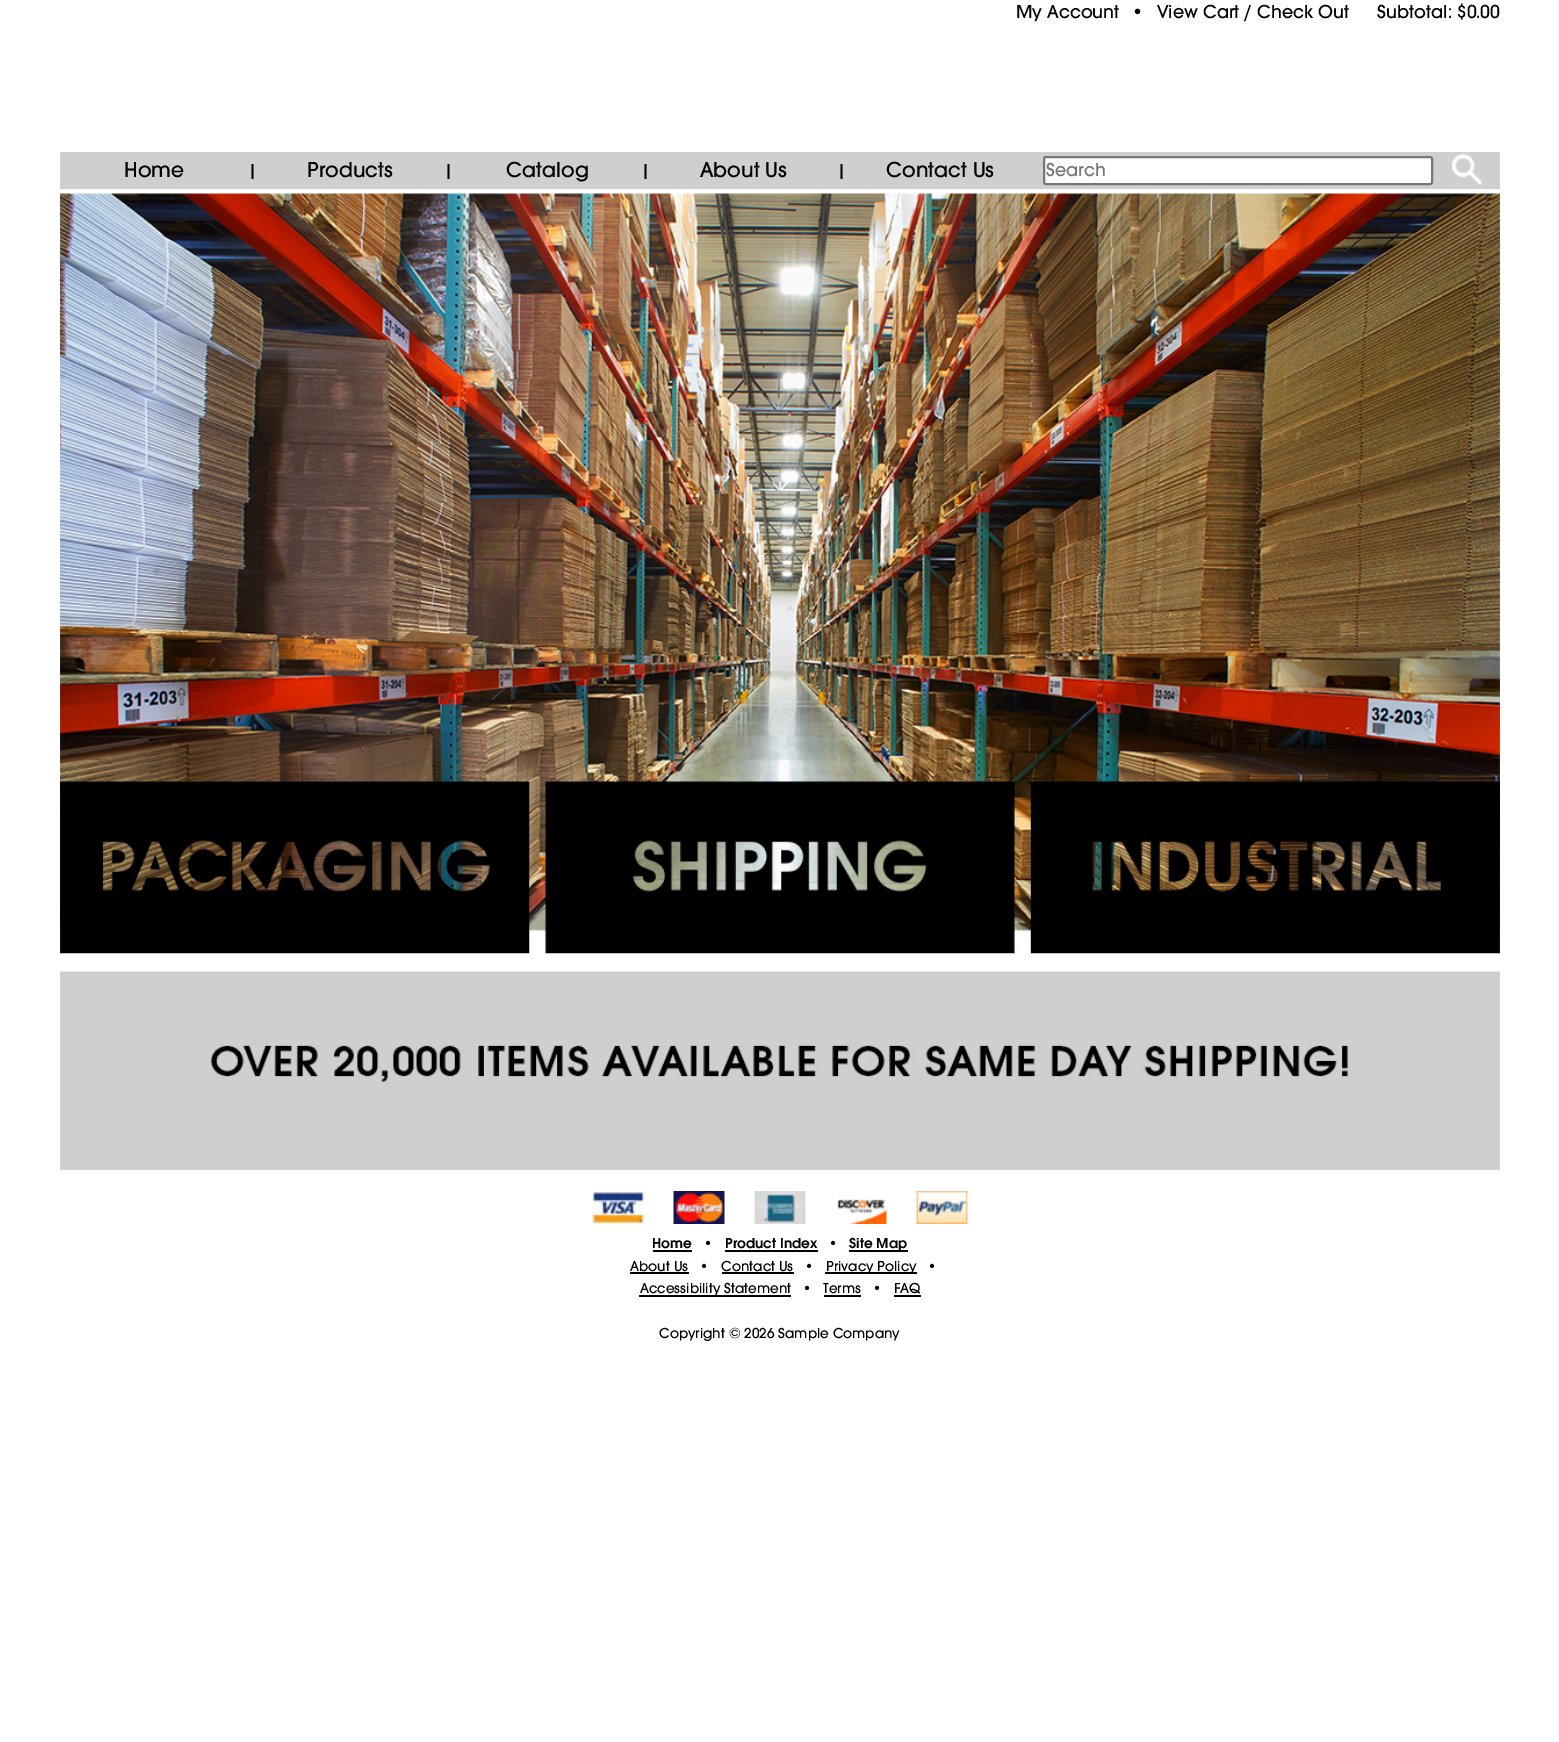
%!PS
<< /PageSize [1559 1742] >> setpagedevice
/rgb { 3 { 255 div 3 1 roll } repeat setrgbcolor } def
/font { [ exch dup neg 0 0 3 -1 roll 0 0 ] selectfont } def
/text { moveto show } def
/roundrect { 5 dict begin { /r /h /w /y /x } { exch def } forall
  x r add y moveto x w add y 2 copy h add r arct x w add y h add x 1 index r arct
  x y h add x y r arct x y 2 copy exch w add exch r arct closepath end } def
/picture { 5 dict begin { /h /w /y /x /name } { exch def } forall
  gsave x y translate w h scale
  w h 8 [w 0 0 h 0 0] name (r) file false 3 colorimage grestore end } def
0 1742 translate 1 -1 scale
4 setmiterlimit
255 255 255 rgb
0 0 1559 1742 rectfill
207 207 207 rgb
60 152 1440 37 rectfill
255 255 255 rgb
1044 157 388 27 2 roundrect gsave fill grestore
118 118 118 rgb
2 setlinewidth
stroke
(img_01.rgb) 1452 154 30 31 picture
(img_02.rgb) 60 193 720 389 picture
(img_03.rgb) 780 193 720 389 picture
(img_04.rgb) 60 582 720 373 picture
(img_05.rgb) 780 582 720 373 picture
(img_06.rgb) 60 971 1440 199 picture
(img_07.rgb) 592 1191 52 33 picture
(img_08.rgb) 673 1191 52 33 picture
(img_09.rgb) 754 1191 52 33 picture
(img_10.rgb) 837 1199 50 25 picture
(img_11.rgb) 916 1191 52 33 picture
0 0 0 rgb
653 1250 39 2 rectfill
725 1250 93 2 rectfill
849 1250 59 2 rectfill
630 1272 59 2 rectfill
722 1272 72 2 rectfill
825 1272 92 2 rectfill
639 1295 152 2 rectfill
824 1295 37 2 rectfill
894 1295 27 2 rectfill
/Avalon-Medium 19.5 font
(My Account) 1016 18 text
(•) 1131 18 text
(View Cart / Check Out) 1157 18 text
(Subtotal: $0.00) 1377 18 text
/Avalon-Medium 22.5 font
(Home) 124 177 text
/Avalon-SemiBold 18 font
(|) 248 176 text
/Avalon-Medium 22.5 font
(Products) 307 177 text
/Avalon-SemiBold 18 font
(|) 444 176 text
/Avalon-Medium 22.5 font
(Catalog) 506 177 text
/Avalon-SemiBold 18 font
(|) 641 176 text
/Avalon-Medium 22.5 font
(About Us) 700 177 text
/Avalon-SemiBold 18 font
(|) 837 176 text
/Avalon-Medium 22.5 font
(Contact Us) 886 177 text
/Avalon-Medium 19.5 font
117 117 117 rgb
(Search) 1046 176 text
/Avalon-SemiBold 15 font
0 0 0 rgb
(Home) 652 1248 text
/Avalon-Medium 15 font
(•) 703 1248 text
/Avalon-SemiBold 15 font
(Product Index) 725 1248 text
/Avalon-Medium 15 font
(•) 828 1248 text
/Avalon-SemiBold 15 font
(Site Map) 849 1248 text
/Avalon-Medium 15 font
(About Us) 630 1271 text
(•) 699 1271 text
(Contact Us) 721 1271 text
(•) 804 1271 text
(Privacy Policy) 826 1271 text
(•) 927 1271 text
(Accessibility Statement) 640 1293 text
(•) 802 1293 text
(Terms) 823 1293 text
(•) 872 1293 text
(FAQ) 894 1293 text
(Copyright © 2026 Sample Company) 659 1338 text
showpage
